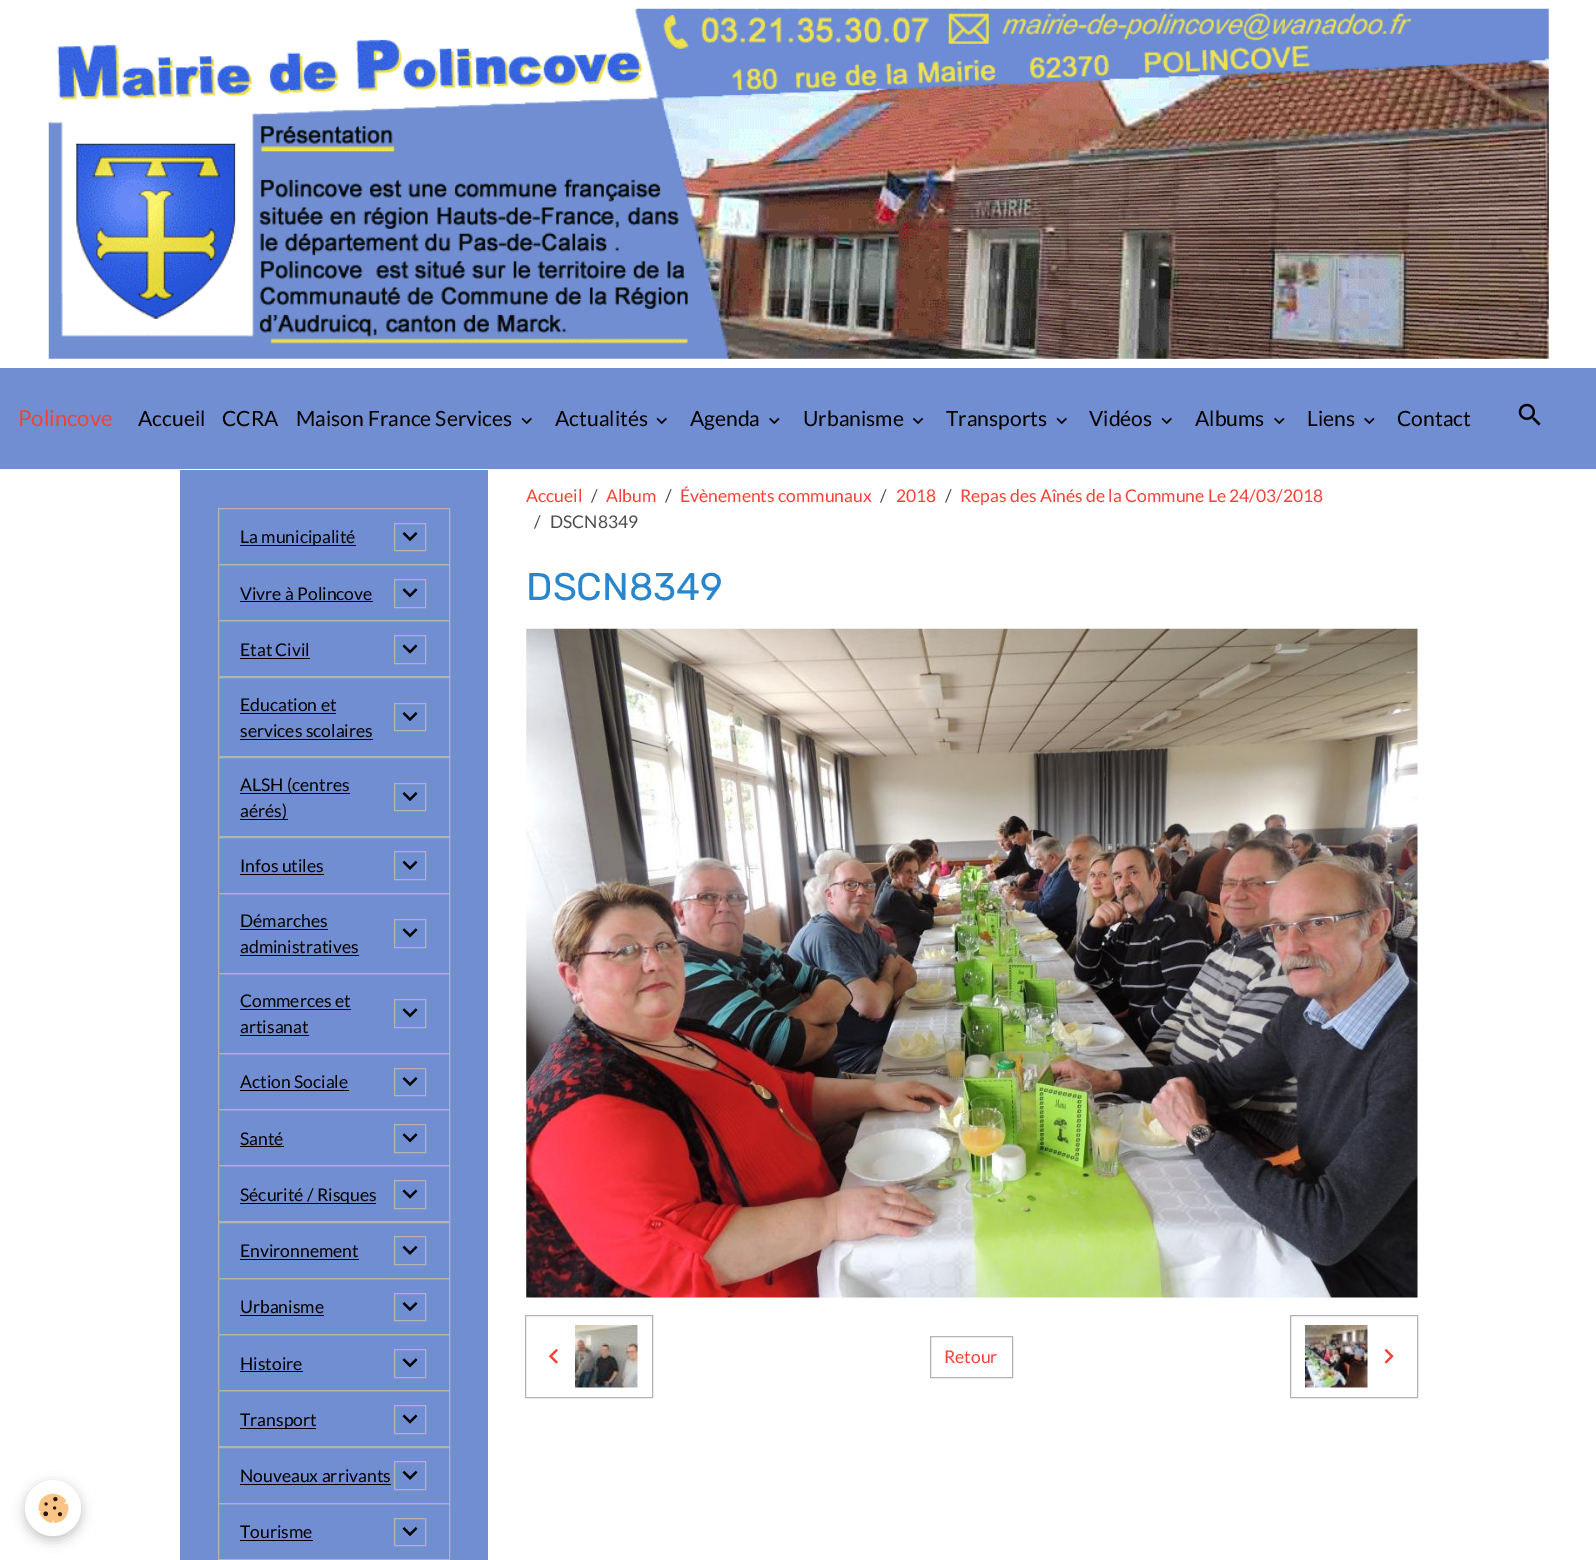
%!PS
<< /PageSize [1596 1560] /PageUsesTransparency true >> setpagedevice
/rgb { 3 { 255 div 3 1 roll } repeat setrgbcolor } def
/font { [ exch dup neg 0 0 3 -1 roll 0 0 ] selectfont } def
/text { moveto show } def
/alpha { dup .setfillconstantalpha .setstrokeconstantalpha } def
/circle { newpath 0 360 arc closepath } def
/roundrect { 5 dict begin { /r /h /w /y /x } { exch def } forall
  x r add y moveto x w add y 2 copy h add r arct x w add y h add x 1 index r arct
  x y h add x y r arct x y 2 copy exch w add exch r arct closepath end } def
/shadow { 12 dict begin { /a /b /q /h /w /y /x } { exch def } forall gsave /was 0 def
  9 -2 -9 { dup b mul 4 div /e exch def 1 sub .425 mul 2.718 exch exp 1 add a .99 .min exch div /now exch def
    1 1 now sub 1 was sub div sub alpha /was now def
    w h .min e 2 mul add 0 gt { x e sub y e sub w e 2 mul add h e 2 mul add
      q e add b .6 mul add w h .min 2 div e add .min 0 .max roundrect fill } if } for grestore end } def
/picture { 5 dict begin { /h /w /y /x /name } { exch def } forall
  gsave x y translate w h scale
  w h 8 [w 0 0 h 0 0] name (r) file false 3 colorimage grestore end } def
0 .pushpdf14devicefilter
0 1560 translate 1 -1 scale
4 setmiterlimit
255 255 255 rgb
0 0 1596 1560 rectfill
(img_01.rgb) 48 8 1501 351 picture
114 142 210 rgb
0 368 1596 101 rectfill
(img_02.rgb) 521 417 11 8 picture
(img_02.rgb) 656 417 11 8 picture
(img_03.rgb) 769 417 11 8 picture
(img_04.rgb) 912 417 12 8 picture
(img_02.rgb) 1056 417 11 8 picture
(img_02.rgb) 1161 417 11 8 picture
(img_03.rgb) 1274 417 11 8 picture
(img_03.rgb) 1364 417 11 8 picture
(img_05.rgb) 1518 403 23 23 picture
0 0 0 rgb
25 1484 56 56 28 6 0.24 shadow
255 255 255 rgb
53 1508 28 circle fill
(img_06.rgb) 38 1493 31 30 picture
114 142 210 rgb
180 470 308 1090 rectfill
179 179 179 rgb
218.5 508.5 231 56 rectstroke
0 0 0 rgb
240 545 116 1 rectfill
179 179 179 rgb
394.5 523.5 31 27 rectstroke
(img_07.rgb) 402 532 16 10 picture
218.5 564.5 231 56 rectstroke
0 0 0 rgb
240 601 133 1 rectfill
179 179 179 rgb
394.5 579.5 31 28 rectstroke
(img_08.rgb) 402 588 16 10 picture
218.5 620.5 231 57 rectstroke
0 0 0 rgb
240 658 70 1 rectfill
179 179 179 rgb
394.5 635.5 31 28 rectstroke
(img_09.rgb) 402 644 16 10 picture
218.5 676.5 231 81 rectstroke
0 0 0 rgb
240 713 96 1 rectfill
240 739 133 1 rectfill
179 179 179 rgb
394.5 703.5 31 27 rectstroke
(img_07.rgb) 402 712 16 10 picture
218.5 756.5 231 81 rectstroke
0 0 0 rgb
240 793 110 1 rectfill
240 819 48 1 rectfill
179 179 179 rgb
394.5 783.5 31 27 rectstroke
(img_07.rgb) 402 792 16 10 picture
218.5 836.5 231 57 rectstroke
0 0 0 rgb
240 874 84 1 rectfill
179 179 179 rgb
394.5 851.5 31 28 rectstroke
(img_10.rgb) 402 860 16 10 picture
218.5 893.5 231 80 rectstroke
0 0 0 rgb
240 929 88 1 rectfill
240 955 119 1 rectfill
179 179 179 rgb
394.5 919.5 31 28 rectstroke
(img_08.rgb) 402 928 16 10 picture
218.5 973.5 231 80 rectstroke
0 0 0 rgb
240 1009 111 1 rectfill
240 1035 69 1 rectfill
179 179 179 rgb
394.5 999.5 31 28 rectstroke
(img_08.rgb) 402 1008 16 10 picture
218.5 1053.5 231 56 rectstroke
0 0 0 rgb
240 1090 109 1 rectfill
179 179 179 rgb
394.5 1068.5 31 27 rectstroke
(img_07.rgb) 402 1077 16 10 picture
218.5 1109.5 231 56 rectstroke
0 0 0 rgb
240 1146 44 1 rectfill
179 179 179 rgb
394.5 1124.5 31 28 rectstroke
(img_08.rgb) 402 1133 16 10 picture
218.5 1165.5 231 57 rectstroke
0 0 0 rgb
240 1203 136 1 rectfill
179 179 179 rgb
394.5 1180.5 31 28 rectstroke
(img_09.rgb) 402 1189 16 10 picture
218.5 1221.5 231 57 rectstroke
0 0 0 rgb
240 1259 119 1 rectfill
179 179 179 rgb
394.5 1236.5 31 28 rectstroke
(img_10.rgb) 402 1245 16 10 picture
218.5 1278.5 231 56 rectstroke
0 0 0 rgb
240 1315 84 1 rectfill
179 179 179 rgb
394.5 1293.5 31 27 rectstroke
(img_07.rgb) 402 1302 16 10 picture
218.5 1334.5 231 56 rectstroke
0 0 0 rgb
240 1371 63 1 rectfill
179 179 179 rgb
394.5 1349.5 31 28 rectstroke
(img_08.rgb) 402 1358 16 10 picture
218.5 1390.5 231 57 rectstroke
0 0 0 rgb
240 1428 76 1 rectfill
179 179 179 rgb
394.5 1405.5 31 28 rectstroke
(img_09.rgb) 402 1414 16 10 picture
218.5 1446.5 231 57 rectstroke
0 0 0 rgb
240 1484 151 1 rectfill
179 179 179 rgb
394.5 1461.5 31 28 rectstroke
(img_10.rgb) 402 1470 16 10 picture
218.5 1503.5 231 56 rectstroke
0 0 0 rgb
240 1540 73 1 rectfill
179 179 179 rgb
394.5 1518.5 31 27 rectstroke
(img_07.rgb) 402 1527 16 10 picture
(img_11.rgb) 526 628 892 670 picture
525.5 1315.5 127 82 rectstroke
(img_12.rgb) 548 1348 10 16 picture
(img_13.rgb) 575 1325 63 63 picture
930.5 1336.5 82 41 rectstroke
1290.5 1315.5 127 82 rectstroke
(img_14.rgb) 1305 1325 63 63 picture
(img_15.rgb) 1384 1348 10 16 picture
/Lato-Regular 22 font
244 67 54 rgb
(Polincove) 18 426 text
/Lato-Regular 21 font
0 0 0 rgb
(Accueil) 138 426 text
(CCRA) 222 426 text
(Maison France Services) 296 426 text
(Actualités) 555 426 text
(Agenda) 690 426 text
(Urbanisme) 803 426 text
(Transports) 946 426 text
(Vidéos) 1089 426 text
(Albums) 1195 426 text
(Liens) 1307 426 text
(Contact) 1397 426 text
/Lato-Regular 17.5 font
(La municipalité) 240 543 text
(Vivre à Polincove) 240 600 text
(Etat Civil) 240 656 text
(Education et) 240 711 text
(services scolaires) 240 737 text
(ALSH \(centres) 240 791 text
(aérés\)) 240 817 text
(Infos utiles) 240 872 text
(Démarches) 240 927 text
(administratives) 240 953 text
(Commerces et) 240 1007 text
(artisanat) 240 1033 text
(Action Sociale) 240 1088 text
(Santé) 240 1145 text
(Sécurité / Risques) 240 1201 text
(Environnement) 240 1257 text
(Urbanisme) 240 1313 text
(Histoire) 240 1370 text
(Transport) 240 1426 text
(Nouveaux arrivants) 240 1482 text
(Tourisme) 240 1538 text
244 67 54 rgb
(Accueil) 526 502 text
77 77 77 rgb
(/) 591 502 text
244 67 54 rgb
(Album) 606 502 text
77 77 77 rgb
(/) 665 502 text
244 67 54 rgb
(Évènements communaux) 680 502 text
77 77 77 rgb
(/) 880 502 text
244 67 54 rgb
(2018) 896 502 text
77 77 77 rgb
(/) 945 502 text
244 67 54 rgb
(Repas des Aînés de la Commune Le 24/03/2018) 960 502 text
77 77 77 rgb
(/) 534 528 text
(DSCN8349) 550 528 text
/Rubik-Regular 38.5 font
41 134 204 rgb
(DSCN8349) 526 600 text
/Lato-Regular 17.5 font
244 67 54 rgb
(Retour) 944 1363 text
.poppdf14devicefilter showpage
